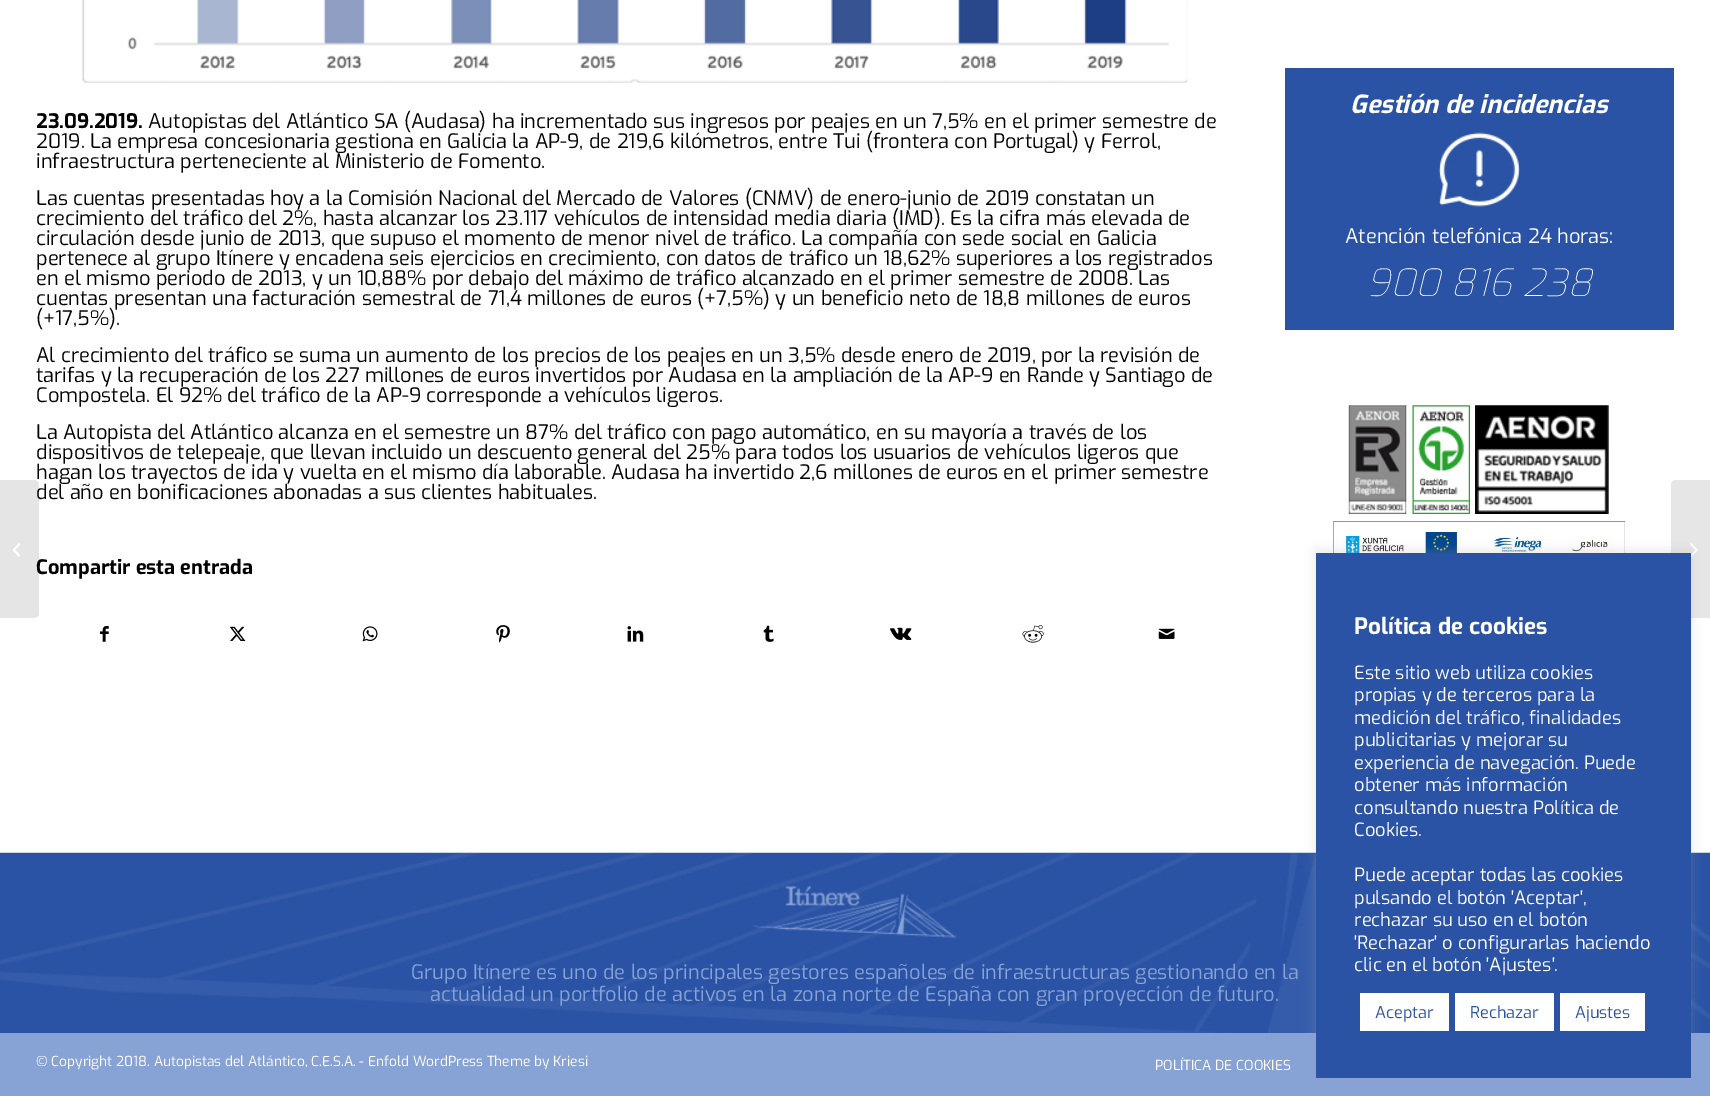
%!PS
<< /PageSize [1710 1096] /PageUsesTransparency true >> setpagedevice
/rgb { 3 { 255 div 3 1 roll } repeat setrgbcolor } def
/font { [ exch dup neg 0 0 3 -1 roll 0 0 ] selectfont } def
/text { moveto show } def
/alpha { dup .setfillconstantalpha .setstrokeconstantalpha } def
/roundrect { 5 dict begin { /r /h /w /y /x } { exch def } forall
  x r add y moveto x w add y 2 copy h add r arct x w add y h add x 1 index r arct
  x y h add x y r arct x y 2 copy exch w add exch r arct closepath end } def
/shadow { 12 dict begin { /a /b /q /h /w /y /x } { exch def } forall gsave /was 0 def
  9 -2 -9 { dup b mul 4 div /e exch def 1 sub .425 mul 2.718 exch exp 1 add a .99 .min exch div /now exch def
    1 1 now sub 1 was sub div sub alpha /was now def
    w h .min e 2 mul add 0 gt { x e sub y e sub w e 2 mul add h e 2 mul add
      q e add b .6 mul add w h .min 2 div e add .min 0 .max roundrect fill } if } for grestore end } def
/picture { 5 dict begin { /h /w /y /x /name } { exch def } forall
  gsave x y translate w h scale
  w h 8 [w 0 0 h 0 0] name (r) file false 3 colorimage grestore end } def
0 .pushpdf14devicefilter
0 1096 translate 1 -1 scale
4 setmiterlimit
255 255 255 rgb
0 0 1710 1096 rectfill
0.1 alpha
0 0 0 rgb
0 480 moveto 34 0 rlineto 3 0 5 2 5 5 rcurveto 0 128 rlineto 0 3 -2 5 -5 5 rcurveto -34 0 rlineto closepath fill
1 alpha
(img_01.rgb) 13 543 7 14 picture
(img_02.rgb) 82 0 1106 83 picture
(img_03.rgb) 100 626 9 16 picture
(img_04.rgb) 229 626 17 15 picture
(img_05.rgb) 362 626 16 16 picture
(img_06.rgb) 496 625 14 18 picture
(img_07.rgb) 627 626 17 16 picture
(img_08.rgb) 763 625 11 17 picture
(img_09.rgb) 890 627 22 13 picture
(img_10.rgb) 1022 625 22 18 picture
(img_11.rgb) 1158 628 17 11 picture
42 83 165 rgb
1285 68 389 262 rectfill
(img_12.rgb) 1438 132 82 75 picture
(img_13.rgb) 1348 405 59 109 picture
(img_14.rgb) 1412 405 58 109 picture
(img_15.rgb) 1475 405 134 109 picture
(img_16.rgb) 1333 521 293 32 picture
(img_17.rgb) 0 852 1710 181 picture
(img_18.rgb) 753 886 204 52 picture
135 162 212 rgb
0 1033 1710 63 rectfill
230 230 230 rgb
1676 480 moveto 34 0 rlineto 0 138 rlineto -34 0 rlineto -3 0 -5 -2 -5 -5 rcurveto 0 -128 rlineto 0 -3 2 -5 5 -5 rcurveto closepath fill
(img_19.rgb) 1690 543 8 14 picture
172 171 171 rgb
1316 551 375 525 0 6 0.3 shadow
42 83 165 rgb
1316 553 375 525 rectfill
255 255 255 rgb
1360 993 89 38 rectfill
1455 993 99 38 rectfill
1560 993 85 38 rectfill
/Exo-Bold 20 font
0 0 0 rgb
(23.09.2019.) 36 128 text
/Exo-Regular 20 font
(Autopistas del Atlántico SA \(Audasa\) ha incrementado sus ingresos por peajes en un 7,5% en el primer semestre de) 148 128 text
(2019. La empresa concesionaria gestiona en Galicia la AP-9, de 219,6 kilómetros, entre Tui \(frontera con Portugal\) y Ferrol,) 36 148 text
(infraestructura perteneciente al Ministerio de Fomento.) 36 168 text
(Las cuentas presentadas hoy a la Comisión Nacional del Mercado de Valores \(CNMV\) de enero-junio de 2019 constatan un) 36 205 text
(crecimiento del tráfico del 2%, hasta alcanzar los 23.117 vehículos de intensidad media diaria \(IMD\). Es la cifra más elevada de) 36 225 text
(circulación desde junio de 2013, que supuso el momento de menor nivel de tráfico. La compañía con sede social en Galicia) 36 245 text
(pertenece al grupo Itínere y encadena seis ejercicios en crecimiento, con datos de tráfico un 18,62% superiores a los registrados) 36 265 text
(en el mismo periodo de 2013, y un 10,88% por debajo del máximo de tráfico alcanzado en el primer semestre de 2008. Las) 36 285 text
(cuentas presentan una facturación semestral de 71,4 millones de euros \(+7,5%\) y un beneficio neto de 18,8 millones de euros) 36 305 text
(\(+17,5%\).) 36 325 text
(Al crecimiento del tráfico se suma un aumento de los precios de los peajes en un 3,5% desde enero de 2019, por la revisión de) 36 362 text
(tarifas y la recuperación de los 227 millones de euros invertidos por Audasa en la ampliación de la AP-9 en Rande y Santiago de) 36 382 text
(Compostela. El 92% del tráfico de la AP-9 corresponde a vehículos ligeros.) 36 402 text
(La Autopista del Atlántico alcanza en el semestre un 87% del tráfico con pago automático, en su mayoría a través de los) 36 439 text
(dispositivos de telepeaje, que llevan incluido un descuento general del 25% para todos los usuarios de vehículos ligeros que) 36 459 text
(hagan los trayectos de ida y vuelta en el mismo día laborable. Audasa ha invertido 2,6 millones de euros en el primer semestre) 36 479 text
(del año en bonificaciones abonadas a sus clientes habituales.) 36 499 text
/Exo-Bold 20 font
(Compartir esta entrada) 36 574 text
/Exo-BoldItalic 25 font
255 255 255 rgb
(Gestión de incidencias) 1350 113 text
/Exo-Regular 20 font
(Atención telefónica 24 horas:) 1345 243 text
/Exo-ThinItalic 37.5 font
(900 816 238) 1366 296 text
/Exo-Regular 20 font
135 162 212 rgb
(Grupo Itínere es uno de los principales gestores españoles de infraestructuras gestionando en la) 411 979 text
(actualidad un portfolio de activos en la zona norte de España con gran proyección de futuro.) 430 1001 text
/Exo-Regular 13.75 font
255 255 255 rgb
(© Copyright 2018. Autopistas del Atlántico, C.E.S.A. - Enfold WordPress Theme by Kriesi) 36 1066 text
(POLÍTICA DE COOKIES) 1155 1070 text
/Exo-Bold 22.5 font
(Política de cookies) 1354 634 text
/Exo-Regular 18.3 font
(Este sitio web utiliza cookies) 1354 679 text
(propias y de terceros para la) 1354 701 text
(medición del tráfico, finalidades) 1354 724 text
(publicitarias y mejorar su) 1354 746 text
(experiencia de navegación. Puede) 1354 769 text
(obtener más información) 1354 791 text
(consultando nuestra Política de) 1354 814 text
(Cookies.) 1354 836 text
(Puede aceptar todas las cookies) 1354 881 text
(pulsando el botón 'Aceptar',) 1354 904 text
(rechazar su uso en el botón) 1354 926 text
('Rechazar' o configurarlas haciendo) 1354 949 text
(clic en el botón 'Ajustes'.) 1354 971 text
/Exo-Regular 16.25 font
42 83 165 rgb
(Aceptar) 1375 1018 text
(Rechazar) 1470 1018 text
(Ajustes) 1575 1018 text
.poppdf14devicefilter showpage
